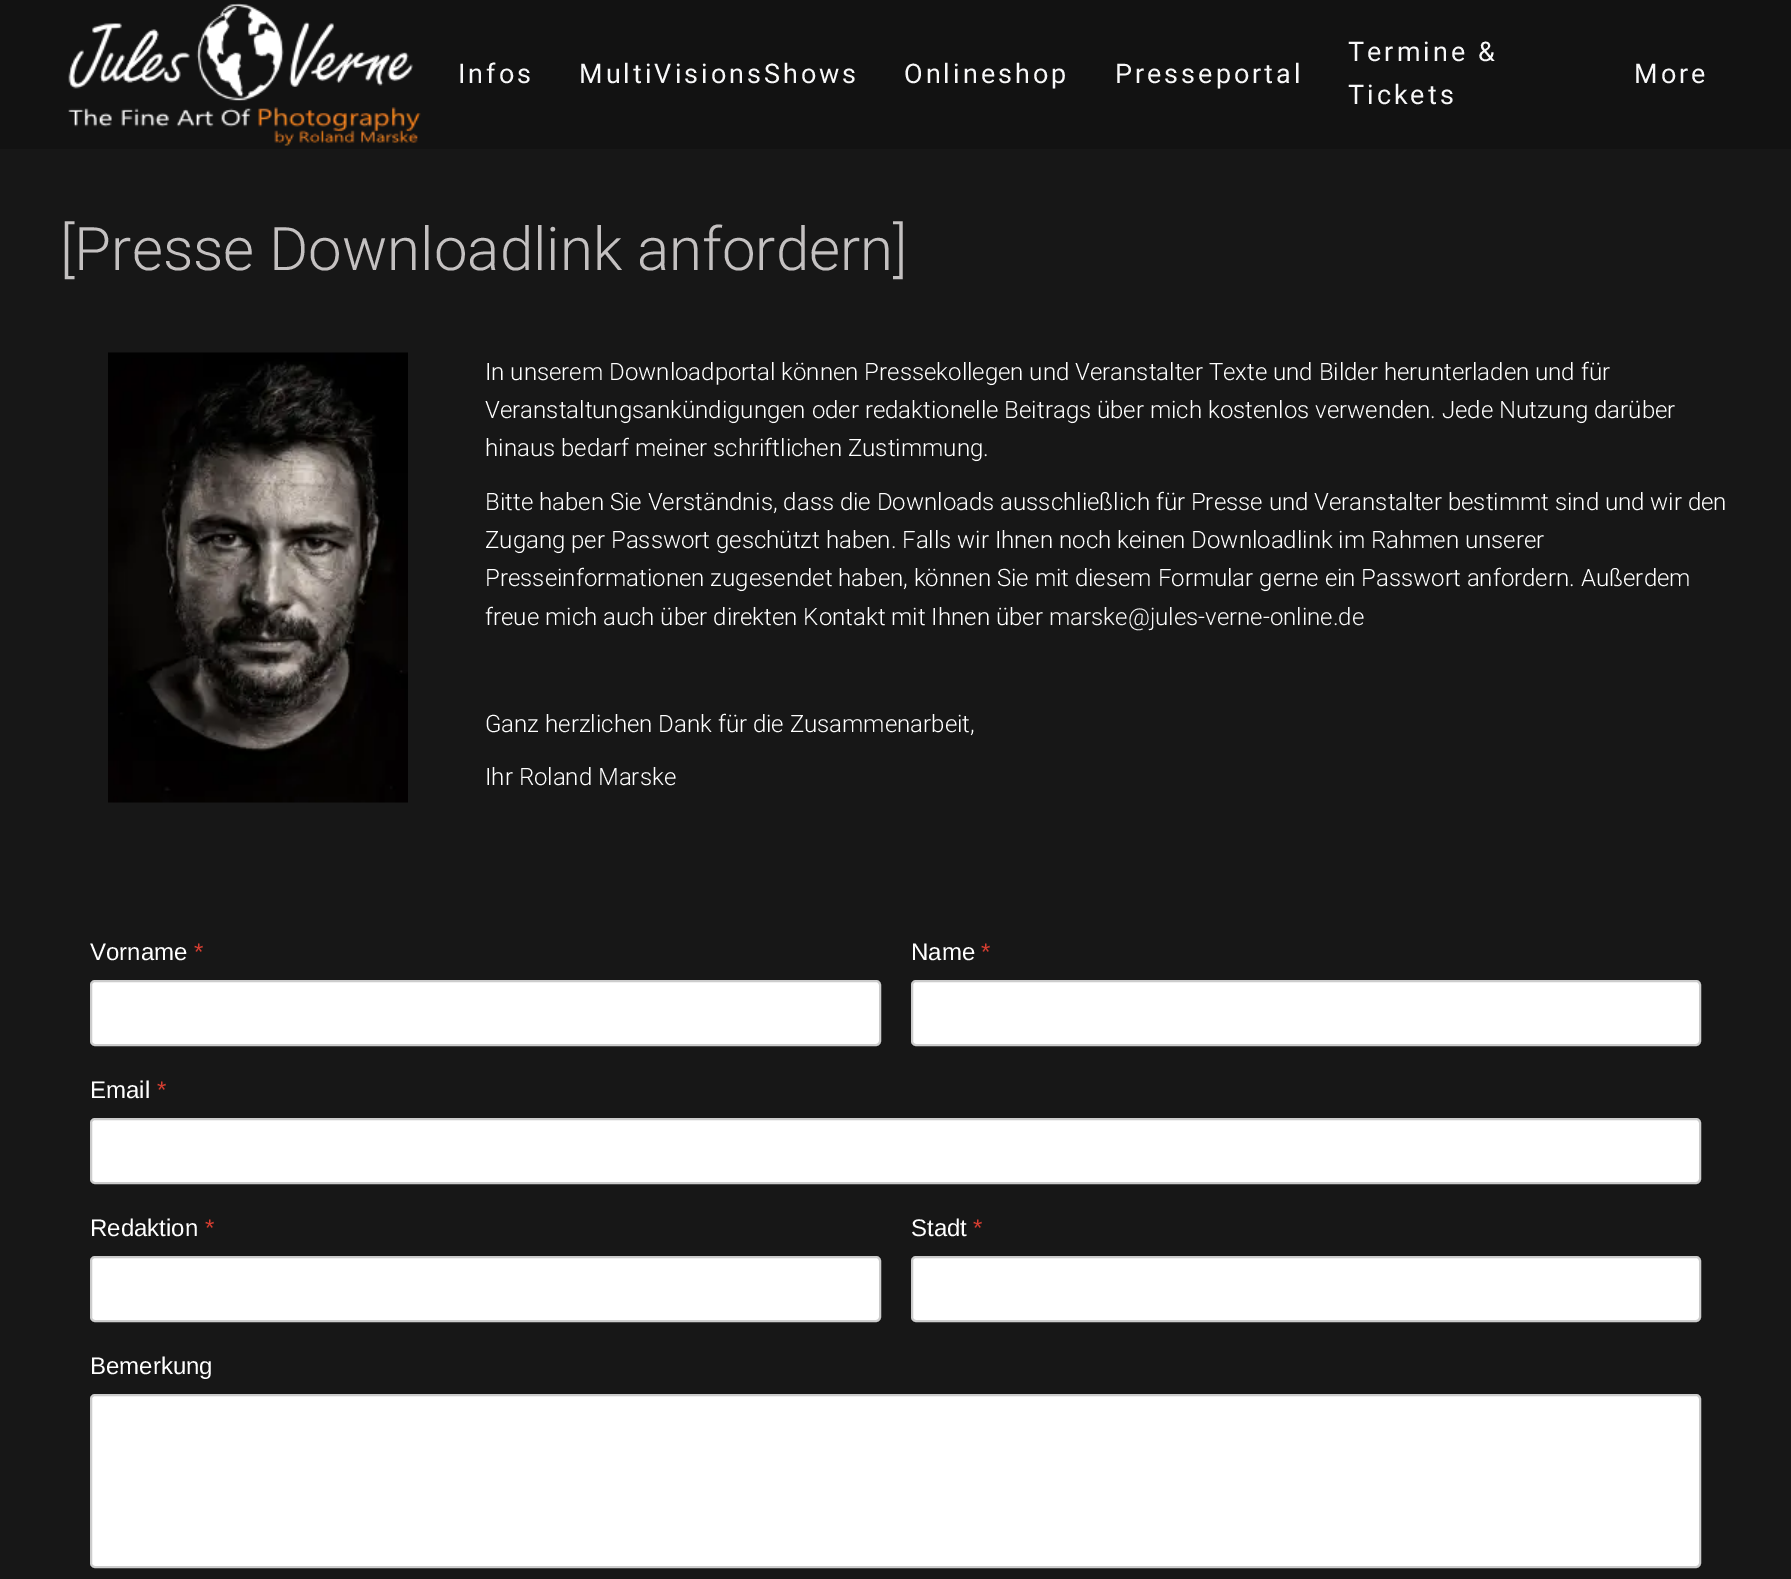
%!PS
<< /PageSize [1791 1579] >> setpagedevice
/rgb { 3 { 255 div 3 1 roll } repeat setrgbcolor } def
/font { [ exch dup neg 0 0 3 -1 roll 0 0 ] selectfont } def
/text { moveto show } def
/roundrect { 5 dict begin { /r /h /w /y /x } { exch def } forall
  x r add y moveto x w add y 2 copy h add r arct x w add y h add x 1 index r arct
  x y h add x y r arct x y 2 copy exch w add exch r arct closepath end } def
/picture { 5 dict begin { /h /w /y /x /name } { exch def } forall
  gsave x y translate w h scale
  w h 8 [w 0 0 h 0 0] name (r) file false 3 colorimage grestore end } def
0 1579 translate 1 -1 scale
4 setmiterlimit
23 23 23 rgb
0 0 1791 1579 rectfill
18 18 18 rgb
0 0 1791 149 rectfill
(img_01.rgb) 68 3 353 143 picture
(img_02.rgb) 108 352 300 451 picture
255 255 255 rgb
91 981 789 64 4 roundrect gsave fill grestore
204 204 204 rgb
2 setlinewidth
stroke
255 255 255 rgb
912 981 788 64 4 roundrect gsave fill grestore
204 204 204 rgb
stroke
255 255 255 rgb
91 1119 1609 64 4 roundrect gsave fill grestore
204 204 204 rgb
stroke
255 255 255 rgb
91 1257 789 64 4 roundrect gsave fill grestore
204 204 204 rgb
stroke
255 255 255 rgb
912 1257 788 64 4 roundrect gsave fill grestore
204 204 204 rgb
stroke
255 255 255 rgb
91 1395 1609 172 4 roundrect gsave fill grestore
204 204 204 rgb
stroke
/Roboto-Regular 27 font
248 248 249 rgb
458 83 moveto 3 0 (Infos) ashow
579 83 moveto 3 0 (MultiVisionsShows) ashow
904 83 moveto 3 0 (Onlineshop) ashow
1115 83 moveto 3 0 (Presseportal) ashow
1348 61 moveto 3 0 (Termine &) ashow
1348 104 moveto 3 0 (Tickets) ashow
1634 83 moveto 3 0 (More) ashow
/Roboto-Light 60 font
196 193 193 rgb
([Presse Downloadlink anfordern]) 60 270 text
/Roboto-Light 24 font
255 255 255 rgb
(In unserem Downloadportal können Pressekollegen und Veranstalter Texte und Bilder herunterladen und für) 485 380 text
(Veranstaltungsankündigungen oder redaktionelle Beitrags über mich kostenlos verwenden. Jede Nutzung darüber) 485 418 text
(hinaus bedarf meiner schriftlichen Zustimmung.) 485 456 text
(Bitte haben Sie Verständnis, dass die Downloads ausschließlich für Presse und Veranstalter bestimmt sind und wir den) 485 510 text
(Zugang per Passwort geschützt haben. Falls wir Ihnen noch keinen Downloadlink im Rahmen unserer) 485 548 text
(Presseinformationen zugesendet haben, können Sie mit diesem Formular gerne ein Passwort anfordern. Außerdem) 485 586 text
(freue mich auch über direkten Kontakt mit Ihnen über) 485 625 text
248 248 249 rgb
(marske@jules-verne-online.de) 1049 625 text
255 255 255 rgb
(Ganz herzlichen Dank für die Zusammenarbeit,) 485 732 text
(Ihr Roland Marske) 485 785 text
/LiberationSans-Regular 24 font
(Vorname) 90 960 text
215 62 49 rgb
(*) 194 960 text
255 255 255 rgb
(Name) 911 960 text
215 62 49 rgb
(*) 981 960 text
255 255 255 rgb
(Email) 90 1098 text
215 62 49 rgb
(*) 157 1098 text
255 255 255 rgb
(Redaktion) 90 1236 text
215 62 49 rgb
(*) 205 1236 text
255 255 255 rgb
(Stadt) 911 1236 text
215 62 49 rgb
(*) 973 1236 text
255 255 255 rgb
(Bemerkung) 90 1374 text
showpage
